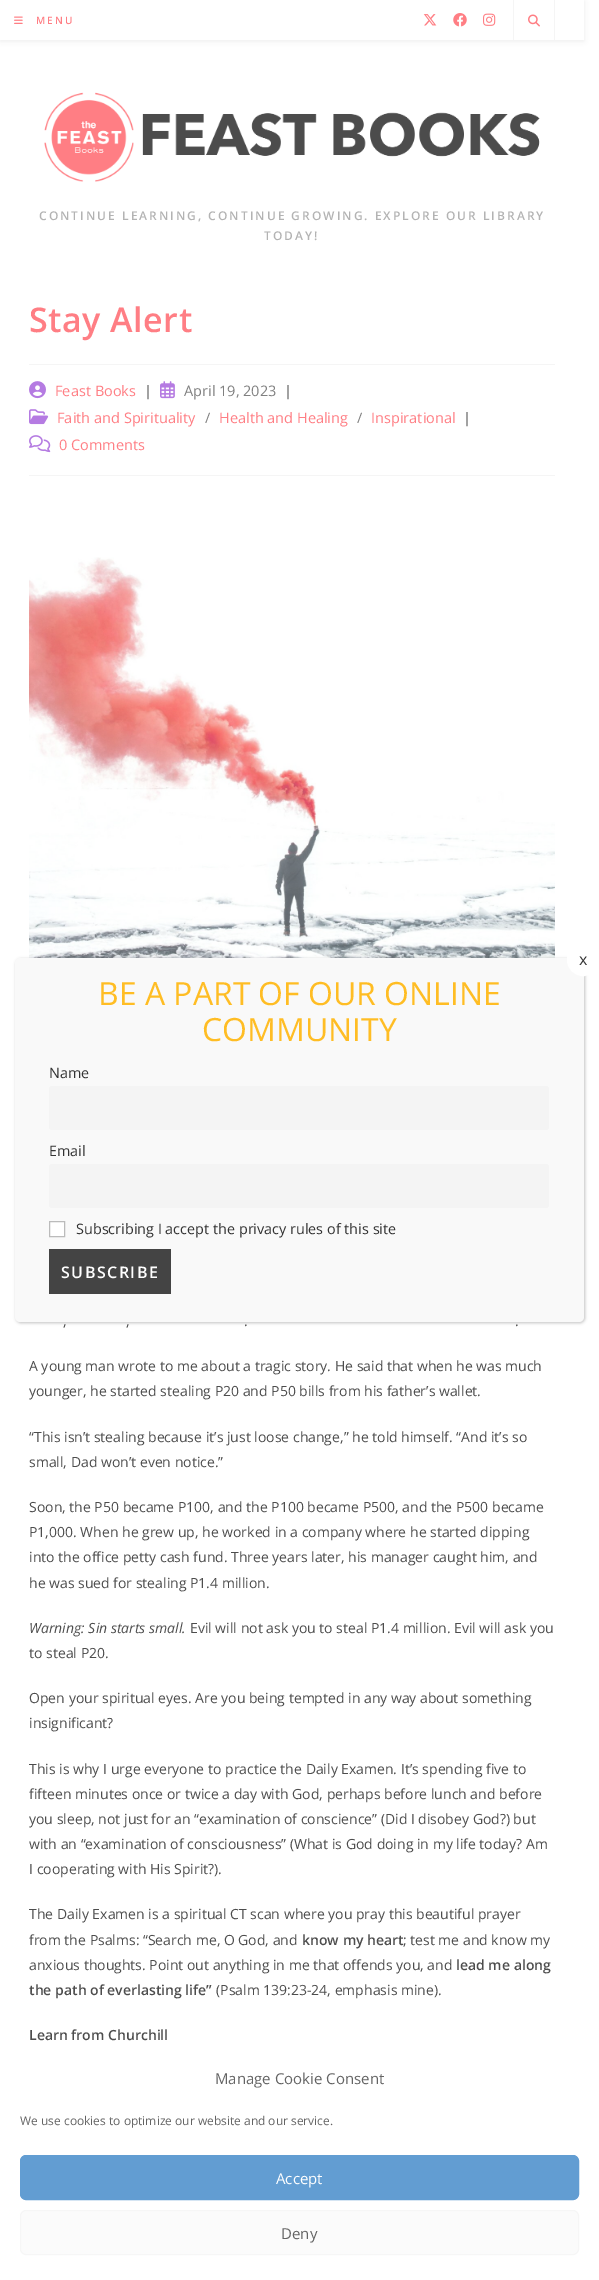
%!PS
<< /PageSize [599 2280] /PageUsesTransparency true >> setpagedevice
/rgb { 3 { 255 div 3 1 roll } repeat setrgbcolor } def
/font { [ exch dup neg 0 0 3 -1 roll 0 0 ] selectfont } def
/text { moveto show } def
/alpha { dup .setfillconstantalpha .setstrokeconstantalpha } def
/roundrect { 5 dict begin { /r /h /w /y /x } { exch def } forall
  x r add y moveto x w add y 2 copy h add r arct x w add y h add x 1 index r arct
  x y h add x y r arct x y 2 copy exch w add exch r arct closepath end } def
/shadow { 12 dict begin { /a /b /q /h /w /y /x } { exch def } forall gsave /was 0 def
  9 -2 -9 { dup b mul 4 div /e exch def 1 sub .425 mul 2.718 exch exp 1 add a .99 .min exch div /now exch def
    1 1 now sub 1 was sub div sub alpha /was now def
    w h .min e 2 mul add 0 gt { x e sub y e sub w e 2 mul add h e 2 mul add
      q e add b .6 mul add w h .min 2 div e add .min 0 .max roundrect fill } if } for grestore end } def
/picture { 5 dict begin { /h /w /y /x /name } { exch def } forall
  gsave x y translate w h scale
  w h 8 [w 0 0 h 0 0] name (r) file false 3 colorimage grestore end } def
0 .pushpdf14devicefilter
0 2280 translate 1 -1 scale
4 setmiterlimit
255 255 255 rgb
0 0 599 2280 rectfill
gsave
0 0 moveto 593 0 rlineto 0 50 rlineto -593 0 rlineto closepath 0 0 moveto 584 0 rlineto 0 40 rlineto -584 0 rlineto closepath eoclip newpath
77 77 77 rgb
0 1 584 40 0 2.5 0.1 shadow
grestore
(img_01.rgb) 14 16 9 8 picture
(img_02.rgb) 423 14 14 12 picture
(img_03.rgb) 453 13 14 14 picture
(img_04.rgb) 483 13 13 13 picture
245 245 245 rgb
554 0 1 40 rectfill
513 0 1 40 rectfill
(img_05.rgb) 528 14 12 13 picture
(img_06.rgb) 44 92 496 90 picture
29 364 526 1 rectfill
29 475 526 1 rectfill
(img_07.rgb) 29 381 17 18 picture
(img_08.rgb) 160 381 15 18 picture
(img_09.rgb) 29 409 20 16 picture
(img_10.rgb) 29 435 22 18 picture
(img_11.rgb) 29 557 526 401 picture
2 2 2 rgb
16 959 569 364 5 1.5 0.23 shadow
249 249 249 rgb
15 958 569 364 5 roundrect fill
255 255 255 rgb
568 944 30 31 15 roundrect gsave fill grestore
2 setlinewidth
stroke
244 244 244 rgb
49 1086 500 44 3 roundrect fill
49 1164 500 44 3 roundrect fill
255 255 255 rgb
49.5 1221.5 moveto 15 0 rlineto 0 15 rlineto -15 0 rlineto closepath gsave fill grestore
187 187 187 rgb
1 setlinewidth
stroke
68 68 68 rgb
49 1249 122 45 rectfill
98 157 210 rgb
20.5 2155.5 558 44 5.5 roundrect gsave fill grestore
stroke
251 251 251 rgb
20.5 2210.5 558 44 5.5 roundrect gsave fill grestore
246 246 246 rgb
stroke
/OpenSans-SemiBold 10 font
255 126 132 rgb
36 24 moveto 2 0 (MENU) ashow
/OpenSans-SemiBold 12 font
179 179 179 rgb
39 220 moveto 2 0 (CONTINUE LEARNING, CONTINUE GROWING. EXPLORE OUR LIBRARY) ashow
264 240 moveto 2 0 (TODAY!) ashow
/OpenSans-SemiBold 34 font
255 126 132 rgb
29 332 moveto 0.5 0 (Stay Alert) ashow
/OpenSans-Regular 14.5 font
(Feast Books) 55 396 text
/OpenSans-Bold 14.5 font
128 128 128 rgb
(|) 144 396 text
/OpenSans-Regular 14.5 font
(April 19, 2023) 184 396 text
/OpenSans-Bold 14.5 font
(|) 284 396 text
/OpenSans-Regular 14.5 font
255 126 132 rgb
(Faith and Spirituality) 57 423 text
128 128 128 rgb
(/) 205 423 text
255 126 132 rgb
(Health and Healing) 219 423 text
128 128 128 rgb
(/) 357 423 text
255 126 132 rgb
(Inspirational) 371 423 text
/OpenSans-Bold 14.5 font
128 128 128 rgb
(|) 463 423 text
/OpenSans-Regular 14.5 font
255 126 132 rgb
(0 Comments) 59 450 text
/OpenSans-Regular 14 font
77 77 77 rgb
(,) 63 1326 text
(,) 126 1326 text
(.) 244 1326 text
(.) 515 1326 text
(A young man wrote to me about a tragic story. He said that when he was much) 29 1371 text
(younger, he started stealing P20 and P50 bills from his father’s wallet.) 29 1396 text
(“This isn’t stealing because it’s just loose change,” he told himself. “And it’s so) 29 1442 text
(small, Dad won’t even notice.”) 29 1467 text
(Soon, the P50 became P100, and the P100 became P500, and the P500 became) 29 1512 text
(P1,000. When he grew up, he worked in a company where he started dipping) 29 1537 text
(into the office petty cash fund. Three years later, his manager caught him, and) 29 1562 text
(he was sued for stealing P1.4 million.) 29 1588 text
/OpenSans-Italic 14 font
(Warning: Sin starts small.) 29 1633 text
/OpenSans-Regular 14 font
(Evil will not ask you to steal P1.4 million. Evil will ask you) 190 1633 text
(to steal P20.) 29 1658 text
(Open your spiritual eyes. Are you being tempted in any way about something) 29 1703 text
(insignificant?) 29 1728 text
(This is why I urge everyone to practice the Daily Examen. It’s spending five to) 29 1774 text
(fifteen minutes once or twice a day with God, perhaps before lunch and before) 29 1799 text
(you sleep, not just for an “examination of conscience” \(Did I disobey God?\) but) 29 1824 text
(with an “examination of consciousness” \(What is God doing in my life today? Am) 29 1849 text
(I cooperating with His Spirit?\).) 29 1874 text
(The Daily Examen is a spiritual CT scan where you pray this beautiful prayer) 29 1919 text
(from the Psalms: “Search me, O God, and) 29 1945 text
/OpenSans-SemiBold 14 font
(know my heart) 302 1945 text
/OpenSans-Regular 14 font
(; test me and know my) 403 1945 text
(anxious thoughts. Point out anything in me that offends you, and) 29 1970 text
/OpenSans-SemiBold 14 font
(lead me along) 456 1970 text
(the path of everlasting life”) 29 1995 text
/OpenSans-Regular 14 font
(\(Psalm 139:23-24, emphasis mine\).) 216 1995 text
/OpenSans-SemiBold 14 font
(Learn from Churchill) 29 2040 text
/OpenSans-Regular 16 font
51 51 51 rgb
(x) 579 965 text
/OpenSans-Regular 32 font
255 189 36 rgb
(BE A PART OF OUR ONLINE) 98 1005 text
(COMMUNITY) 202 1041 text
/OpenSans-Regular 14.4 font
51 51 51 rgb
(Name) 49 1078 text
(Email) 49 1156 text
(Subscribing I accept the privacy rules of this site) 76 1234 text
/OpenSans-SemiBold 16 font
255 255 255 rgb
61 1278 moveto 1.5 0 (SUBSCRIBE) ashow
/OpenSans-Regular 15 font
100 100 100 rgb
(Manage Cookie Consent) 215 2084 text
/OpenSans-Regular 12 font
(We use cookies to optimize our website and our service.) 20 2125 text
/OpenSans-Regular 15 font
255 255 255 rgb
(Accept) 276 2184 text
100 100 100 rgb
(Deny) 281 2239 text
.poppdf14devicefilter showpage
